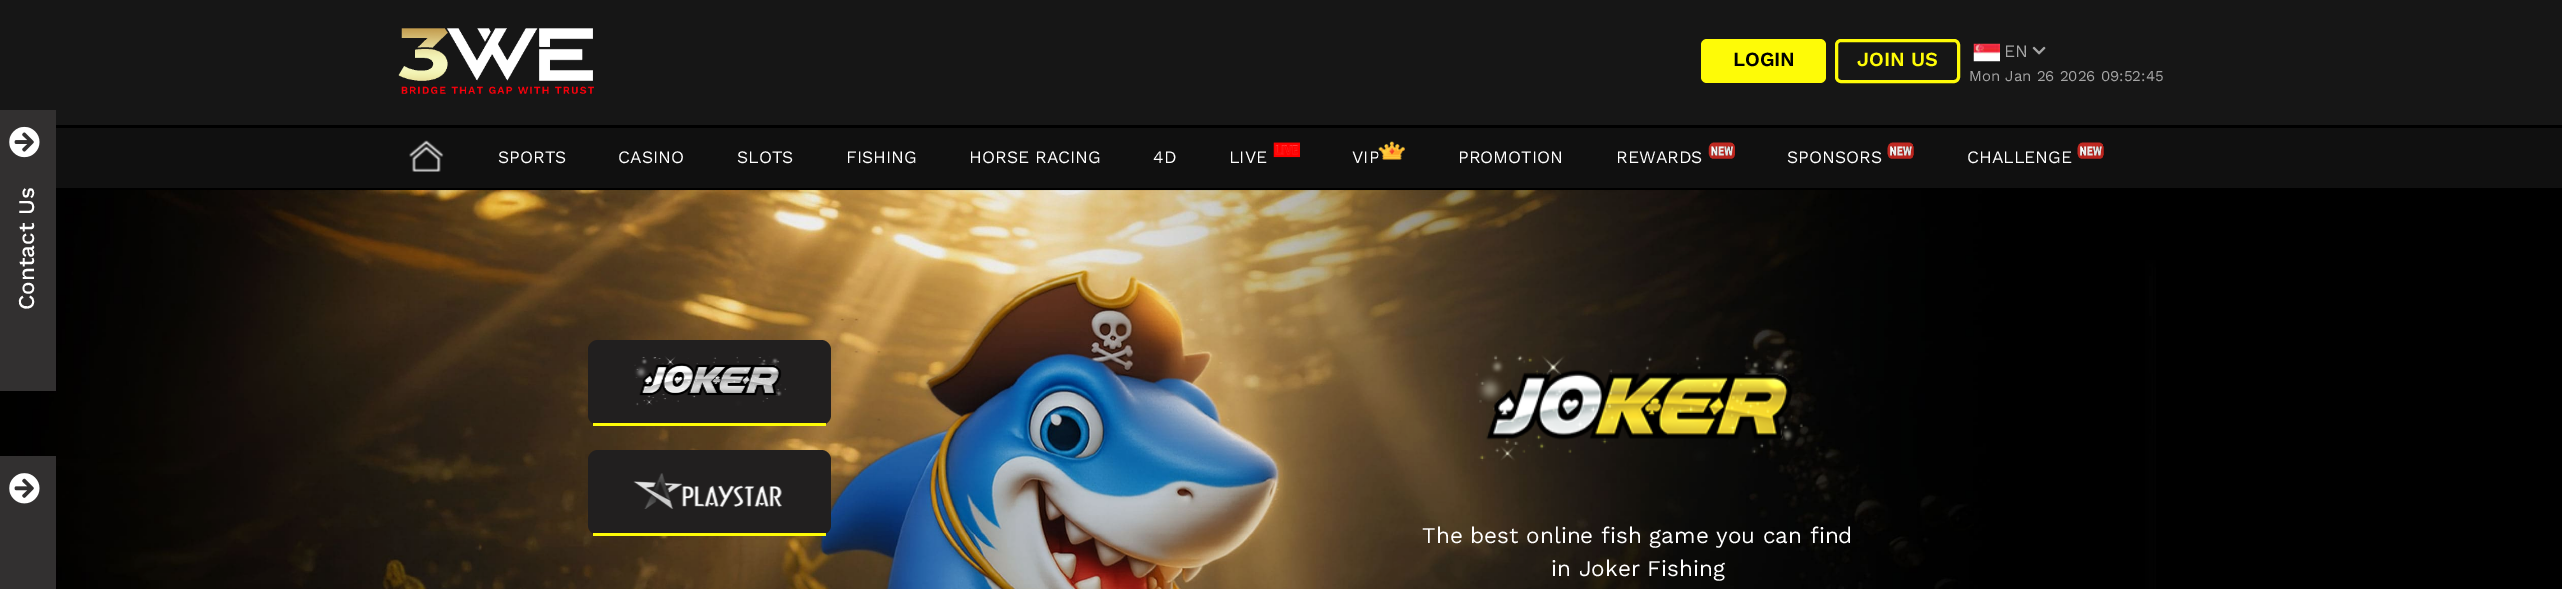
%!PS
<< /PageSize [2562 589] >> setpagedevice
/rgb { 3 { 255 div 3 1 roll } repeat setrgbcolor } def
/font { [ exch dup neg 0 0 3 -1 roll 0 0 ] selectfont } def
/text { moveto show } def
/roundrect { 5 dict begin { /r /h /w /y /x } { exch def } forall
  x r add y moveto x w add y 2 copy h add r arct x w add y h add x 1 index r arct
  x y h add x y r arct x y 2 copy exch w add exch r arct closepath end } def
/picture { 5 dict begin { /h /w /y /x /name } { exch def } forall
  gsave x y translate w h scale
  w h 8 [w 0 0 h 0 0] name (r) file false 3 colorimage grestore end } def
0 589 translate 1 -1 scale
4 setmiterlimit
16 16 16 rgb
0 0 2562 589 rectfill
22 22 22 rgb
0 0 2562 125 rectfill
(img_01.rgb) 398 28 196 66 picture
254 251 7 rgb
1701 39 125 44 6 roundrect fill
3 setlinewidth
1836.5 40.5 122 41 4.5 roundrect stroke
(img_02.rgb) 1973 43 27 19 picture
(img_03.rgb) 2032 46 14 9 picture
0 0 0 rgb
56 125 2506 3 rectfill
56 188 2506 2 rectfill
(img_04.rgb) 409 140 35 32 picture
(img_05.rgb) 1273 142 27 16 picture
(img_07.rgb) 1708 142 27 17 picture
(img_08.rgb) 1887 142 27 17 picture
(img_08.rgb) 2077 142 27 17 picture
(img_11.rgb) 0 190 2562 399 picture
50 48 48 rgb
0 110 56 281 rectfill
(img_09.rgb) 9 126 31 32 picture
0 456 56 133 rectfill
(img_10.rgb) 9 473 31 31 picture
33 31 31 rgb
588 340 243 85 10 roundrect fill
254 251 7 rgb
593 423 233 3 rectfill
(img_12.rgb) 634 356 152 50 picture
33 31 31 rgb
588 450 243 85 10 roundrect fill
254 251 7 rgb
593 533 233 3 rectfill
(img_13.rgb) 633 473 149 36 picture
(img_14.rgb) 1475 355 328 106 picture
/WorkSans-SemiBold 20 font
0 0 0 rgb
(LOGIN) 1733 66 text
254 251 7 rgb
(JOIN US) 1857 66 text
/WorkSans-Regular 17.5 font
165 165 165 rgb
(EN) 2004 57 text
/WorkSans-Regular 15 font
(Mon Jan 26 2026 09:52:45) 1969 81 text
/WorkSans-Regular 17.5 font
255 255 255 rgb
(SPORTS) 498 163 text
(CASINO) 618 163 text
(SLOTS) 737 163 text
(FISHING) 846 163 text
(HORSE RACING) 969 163 text
(4D) 1153 163 text
(LIVE) 1229 163 text
(VIP) 1352 163 text
(img_06.rgb) 1378 141 27 19 picture
(PROMOTION) 1458 163 text
(REWARDS) 1616 163 text
(SPONSORS) 1787 163 text
(CHALLENGE) 1967 163 text
/WorkSans-Medium 22.5 font
gsave 34 310 translate -90 rotate 0 0 moveto (Contact Us) show grestore
/WorkSans-Regular 22.5 font
(The best online fish game you can find) 1422 543 text
(in Joker Fishing) 1551 576 text
showpage
